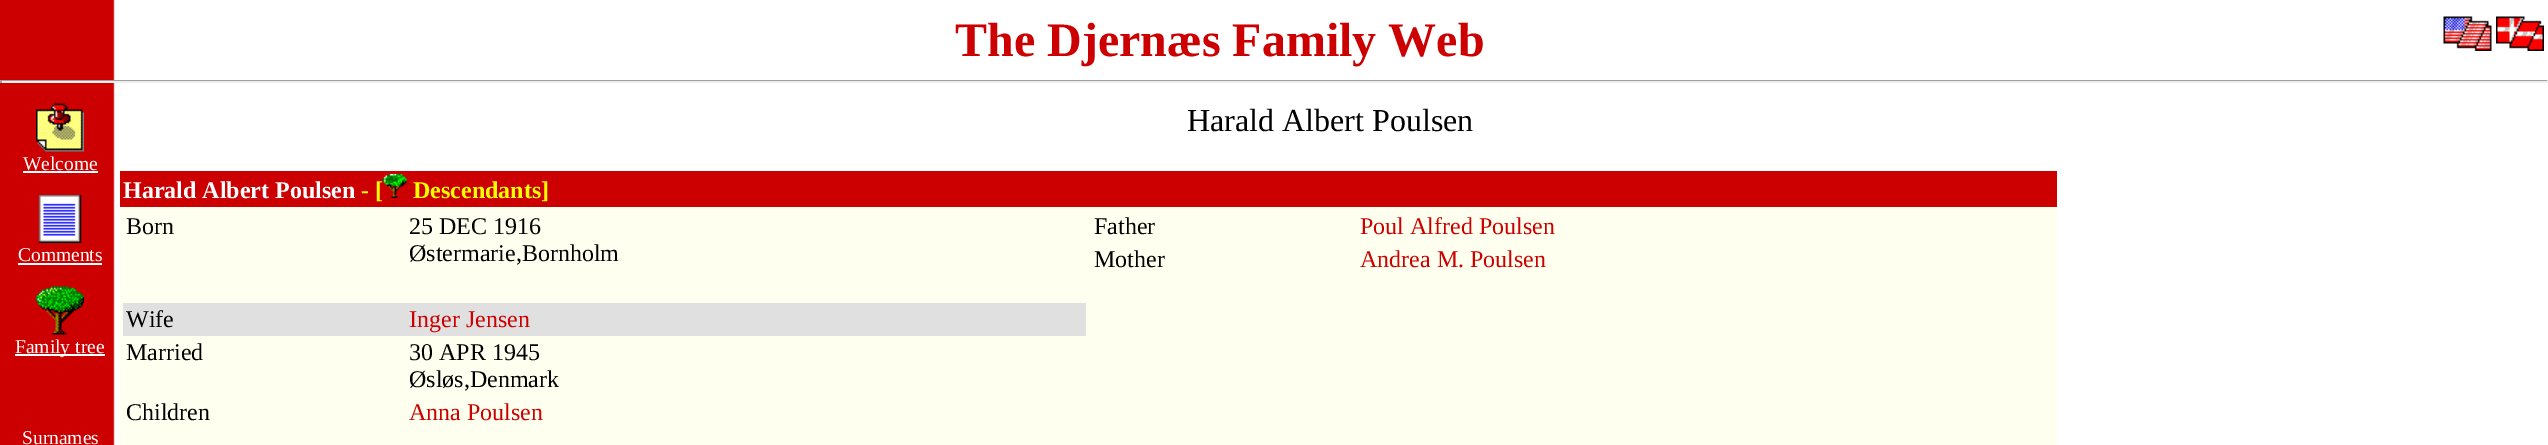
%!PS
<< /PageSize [2548 445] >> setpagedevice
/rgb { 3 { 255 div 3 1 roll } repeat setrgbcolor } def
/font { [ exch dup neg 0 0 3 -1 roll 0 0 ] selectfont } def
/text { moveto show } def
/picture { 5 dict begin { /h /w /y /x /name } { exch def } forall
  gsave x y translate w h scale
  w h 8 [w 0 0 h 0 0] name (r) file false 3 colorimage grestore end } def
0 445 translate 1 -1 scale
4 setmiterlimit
255 255 255 rgb
0 0 2548 445 rectfill
(img_01.rgb) 0 0 115 445 picture
(img_02.rgb) 2443 16 49 35 picture
(img_03.rgb) 2496 16 48 35 picture
159 159 159 rgb
0 80 2548 1 rectfill
238 238 238 rgb
2547 80 1 3 rectfill
0 81 2548 2 rectfill
159 159 159 rgb
0 80 2 3 rectfill
(img_04.rgb) 36 103 48 49 picture
255 255 255 rgb
23 171 75 2 rectfill
(img_05.rgb) 38 195 44 48 picture
18 263 84 2 rectfill
(img_06.rgb) 36 286 48 49 picture
15 354 90 2 rectfill
255 255 239 rgb
120 207 1937 238 rectfill
204 0 0 rgb
120 171 1937 36 rectfill
224 224 224 rgb
123 303 963 33 rectfill
/LiberationSerif-Bold 48 font
204 0 0 rgb
(The Djernæs Family Web) 955 56 text
/LiberationSerif-Regular 19.5 font
255 255 255 rgb
(Welcome) 23 170 text
(Comments) 18 261 text
(Family tree) 15 353 text
(Surnames) 22 444 text
/LiberationSerif-Regular 32 font
0 0 0 rgb
(Harald Albert Poulsen) 1187 131 text
/LiberationSerif-Bold 24 font
255 255 255 rgb
(Harald Albert Poulsen) 123 198 text
255 255 0 rgb
(- [) 361 198 text
(img_07.rgb) 382 174 25 24 picture
(Descendants]) 413 198 text
/LiberationSerif-Regular 24 font
0 0 0 rgb
(Born) 126 234 text
(25 DEC 1916) 409 234 text
(Østermarie,Bornholm) 409 261 text
(Wife) 126 327 text
204 0 0 rgb
(Inger Jensen) 409 327 text
0 0 0 rgb
(Married) 126 360 text
(30 APR 1945) 409 360 text
(Øsløs,Denmark) 409 387 text
(Children) 126 420 text
204 0 0 rgb
(Anna Poulsen) 409 420 text
0 0 0 rgb
(Father) 1094 234 text
204 0 0 rgb
(Poul Alfred Poulsen) 1360 234 text
0 0 0 rgb
(Mother) 1094 267 text
204 0 0 rgb
(Andrea M. Poulsen) 1360 267 text
showpage
